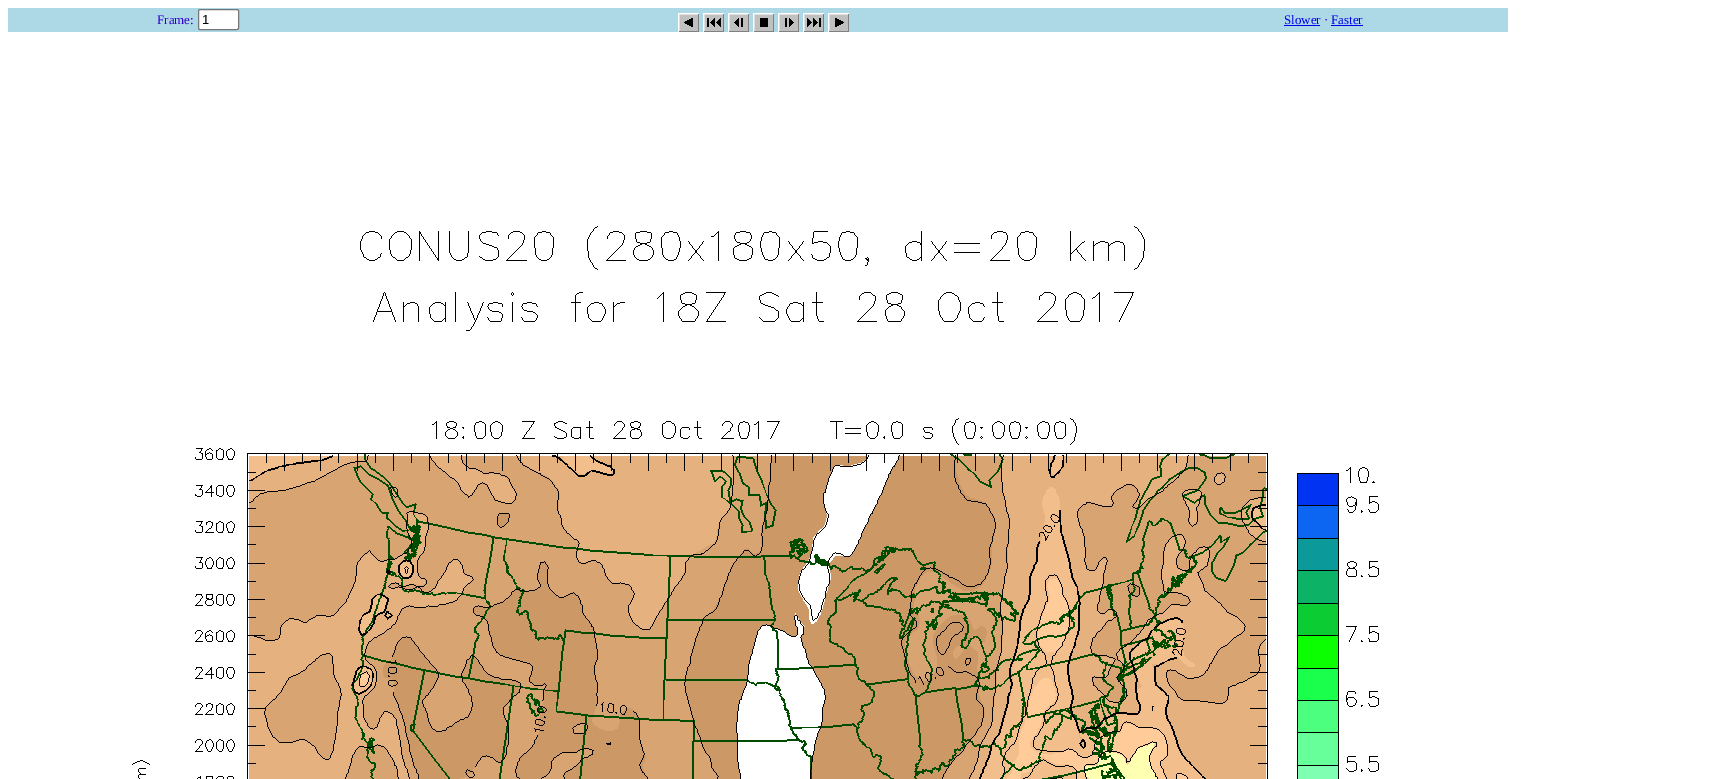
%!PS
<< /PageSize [1717 779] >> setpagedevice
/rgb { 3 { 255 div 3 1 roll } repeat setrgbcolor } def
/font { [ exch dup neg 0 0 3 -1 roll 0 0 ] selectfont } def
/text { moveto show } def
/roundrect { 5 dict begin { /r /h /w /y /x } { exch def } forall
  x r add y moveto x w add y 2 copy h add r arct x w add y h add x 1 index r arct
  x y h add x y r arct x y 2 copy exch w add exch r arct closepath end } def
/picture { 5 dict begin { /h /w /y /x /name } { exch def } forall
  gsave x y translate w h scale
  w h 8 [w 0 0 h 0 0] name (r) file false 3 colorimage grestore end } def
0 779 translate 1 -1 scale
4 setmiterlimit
255 255 255 rgb
0 0 1717 779 rectfill
173 216 230 rgb
8 8 1500 24 rectfill
255 255 255 rgb
198.5 9.5 40 20 1.5 roundrect gsave fill grestore
118 118 118 rgb
stroke
(img_01.rgb) 678 13 21 19 picture
(img_02.rgb) 703 13 21 19 picture
(img_03.rgb) 728 13 21 19 picture
(img_04.rgb) 753 13 21 19 picture
(img_05.rgb) 778 13 21 19 picture
(img_06.rgb) 803 13 21 19 picture
(img_07.rgb) 828 13 21 19 picture
0 0 238 rgb
1284 25 36 1 rectfill
1331 25 32 1 rectfill
(img_08.rgb) 132 226 1247 553 picture
/LiberationSerif-Regular 13 font
51 0 204 rgb
(Frame:) 157 24 text
/LiberationSans-Regular 13 font
0 0 0 rgb
(1) 202 24 text
/LiberationSerif-Regular 13 font
0 0 238 rgb
(Slower) 1284 24 text
51 0 204 rgb
(·) 1324 24 text
0 0 238 rgb
(Faster) 1331 24 text
showpage
